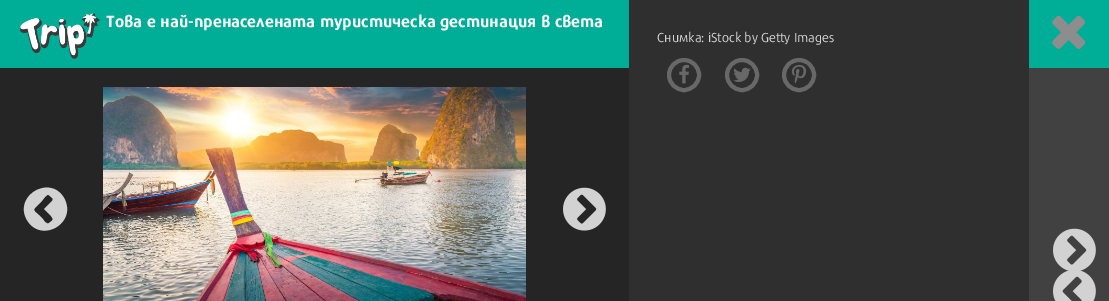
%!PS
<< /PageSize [1109 301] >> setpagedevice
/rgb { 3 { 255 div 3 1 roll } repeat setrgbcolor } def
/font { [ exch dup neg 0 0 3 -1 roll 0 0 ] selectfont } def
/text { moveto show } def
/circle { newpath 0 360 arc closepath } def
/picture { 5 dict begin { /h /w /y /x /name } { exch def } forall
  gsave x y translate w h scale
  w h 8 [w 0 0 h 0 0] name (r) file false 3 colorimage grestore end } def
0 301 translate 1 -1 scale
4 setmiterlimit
37 37 37 rgb
0 0 1109 301 rectfill
0 173 150 rgb
0 0 629 68 rectfill
(img_01.rgb) 20 13 80 46 picture
210 210 210 rgb
49 223 moveto 4 -3 5 -3 2 -7 rcurveto -7 -7 rlineto 8 -8 rlineto 2 -2 0 -3 -1 -4 rcurveto -3 -3 -3 -3 -6 0 rcurveto -4 5 rlineto -10 10 -9 6 2 17 rcurveto 0 1 4 6 6 4 rcurveto closepath 64 198 moveto 14 25 -23 46 -37 22 rcurveto -14 -24 23 -46 37 -22 rcurveto closepath fill
(img_02.rgb) 103 87 423 214 picture
(img_03.rgb) 563 187 43 44 picture
47 47 47 rgb
629 0 400 301 rectfill
104 104 104 rgb
4 setlinewidth
684 75 15 circle stroke
(img_04.rgb) 679 64 10 20 picture
742 75 15 circle stroke
(img_05.rgb) 733 67 18 15 picture
799 75 15 circle stroke
(img_06.rgb) 791 64 16 20 picture
65 65 65 rgb
1029 68 80 233 rectfill
0 173 150 rgb
1029 0 80 68 rectfill
(img_07.rgb) 1052 15 34 34 picture
(img_08.rgb) 1053 228 43 43 picture
(img_09.rgb) 1053 270 43 31 picture
/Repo-Bold 16 font
255 255 255 rgb
(Това е най-пренаселената туристическа дестинация в света) 106 27 text
/Repo-Regular 13 font
210 210 210 rgb
(Снимка: iStock by Getty Images) 657 42 text
showpage
